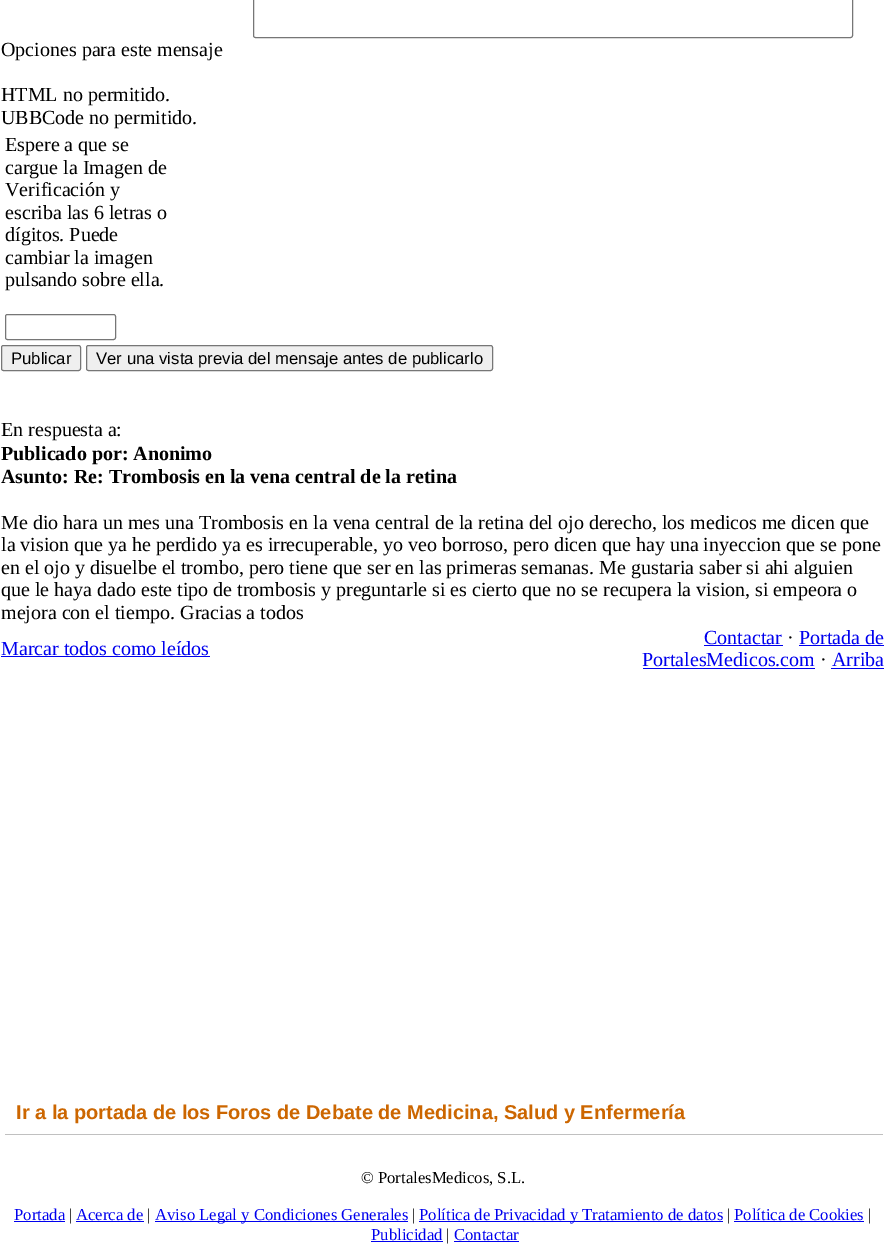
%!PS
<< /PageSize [885 1253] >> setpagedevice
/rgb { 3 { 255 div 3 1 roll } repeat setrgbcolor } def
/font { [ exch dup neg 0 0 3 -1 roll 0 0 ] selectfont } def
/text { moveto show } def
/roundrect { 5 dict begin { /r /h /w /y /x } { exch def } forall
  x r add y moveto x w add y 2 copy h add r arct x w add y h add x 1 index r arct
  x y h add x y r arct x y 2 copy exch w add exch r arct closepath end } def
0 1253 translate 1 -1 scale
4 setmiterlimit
255 255 255 rgb
0 0 885 1253 rectfill
118 118 118 rgb
253.5 -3.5 599 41 2 roundrect stroke
5.5 314.5 110 25 2 roundrect stroke
239 239 239 rgb
1.5 345.5 79 25 2 roundrect gsave fill grestore
118 118 118 rgb
stroke
239 239 239 rgb
86.5 345.5 406 25 2 roundrect gsave fill grestore
118 118 118 rgb
stroke
0 0 238 rgb
1 656 209 1 rectfill
704 645 79 1 rectfill
799 645 85 1 rectfill
643 668 172 1 rectfill
831 668 53 1 rectfill
192 192 192 rgb
5 1134 878 1 rectfill
0 0 238 rgb
14 1221 51 1 rectfill
76 1221 68 1 rectfill
155 1221 253 1 rectfill
419 1221 304 1 rectfill
734 1221 130 1 rectfill
371 1241 72 1 rectfill
454 1241 65 1 rectfill
/LiberationSerif-Regular 20 font
0 0 0 rgb
(Opciones para este mensaje) 1 56 text
(HTML no permitido.) 1 101 text
(UBBCode no permitido.) 1 124 text
(Espere a que se) 5 151 text
(cargue la Imagen de) 5 174 text
(Verificación y) 5 196 text
(escriba las 6 letras o) 5 219 text
(dígitos. Puede) 5 241 text
(cambiar la imagen) 5 264 text
(pulsando sobre ella.) 5 286 text
/LiberationSans-Regular 16.7 font
(Publicar) 11 364 text
(Ver una vista previa del mensaje antes de publicarlo) 96 364 text
/LiberationSerif-Regular 20 font
(En respuesta a:) 1 436 text
/LiberationSerif-Bold 20 font
(Publicado por: Anonimo) 1 460 text
(Asunto: Re: Trombosis en la vena central de la retina) 1 483 text
/LiberationSerif-Regular 20 font
(Me dio hara un mes una Trombosis en la vena central de la retina del ojo derecho, los medicos me dicen que) 1 529 text
(la vision que ya he perdido ya es irrecuperable, yo veo borroso, pero dicen que hay una inyeccion que se pone) 1 551 text
(en el ojo y disuelbe el trombo, pero tiene que ser en las primeras semanas. Me gustaria saber si ahi alguien) 1 574 text
(que le haya dado este tipo de trombosis y preguntarle si es cierto que no se recupera la vision, si empeora o) 1 596 text
(mejora con el tiempo. Gracias a todos) 1 619 text
0 0 238 rgb
(Marcar todos como leídos) 1 655 text
(Contactar) 704 644 text
0 0 0 rgb
(·) 787 644 text
0 0 238 rgb
(Portada de) 799 644 text
(PortalesMedicos.com) 642 666 text
0 0 0 rgb
(·) 820 666 text
0 0 238 rgb
(Arriba) 832 666 text
/LiberationSans-Bold 20 font
204 102 0 rgb
(Ir a la portada de los Foros de Debate de Medicina, Salud y Enfermería) 16 1119 text
/LiberationSerif-Regular 16.7 font
0 0 0 rgb
(© PortalesMedicos, S.L.) 361 1183 text
0 0 238 rgb
(Portada) 14 1220 text
0 0 0 rgb
(|) 69 1220 text
0 0 238 rgb
(Acerca de) 76 1220 text
0 0 0 rgb
(|) 147 1220 text
0 0 238 rgb
(Aviso Legal y Condiciones Generales) 155 1220 text
0 0 0 rgb
(|) 412 1220 text
0 0 238 rgb
(Política de Privacidad y Tratamiento de datos) 419 1220 text
0 0 0 rgb
(|) 727 1220 text
0 0 238 rgb
(Política de Cookies) 734 1220 text
0 0 0 rgb
(|) 868 1220 text
0 0 238 rgb
(Publicidad) 371 1240 text
0 0 0 rgb
(|) 446 1240 text
0 0 238 rgb
(Contactar) 454 1240 text
showpage
